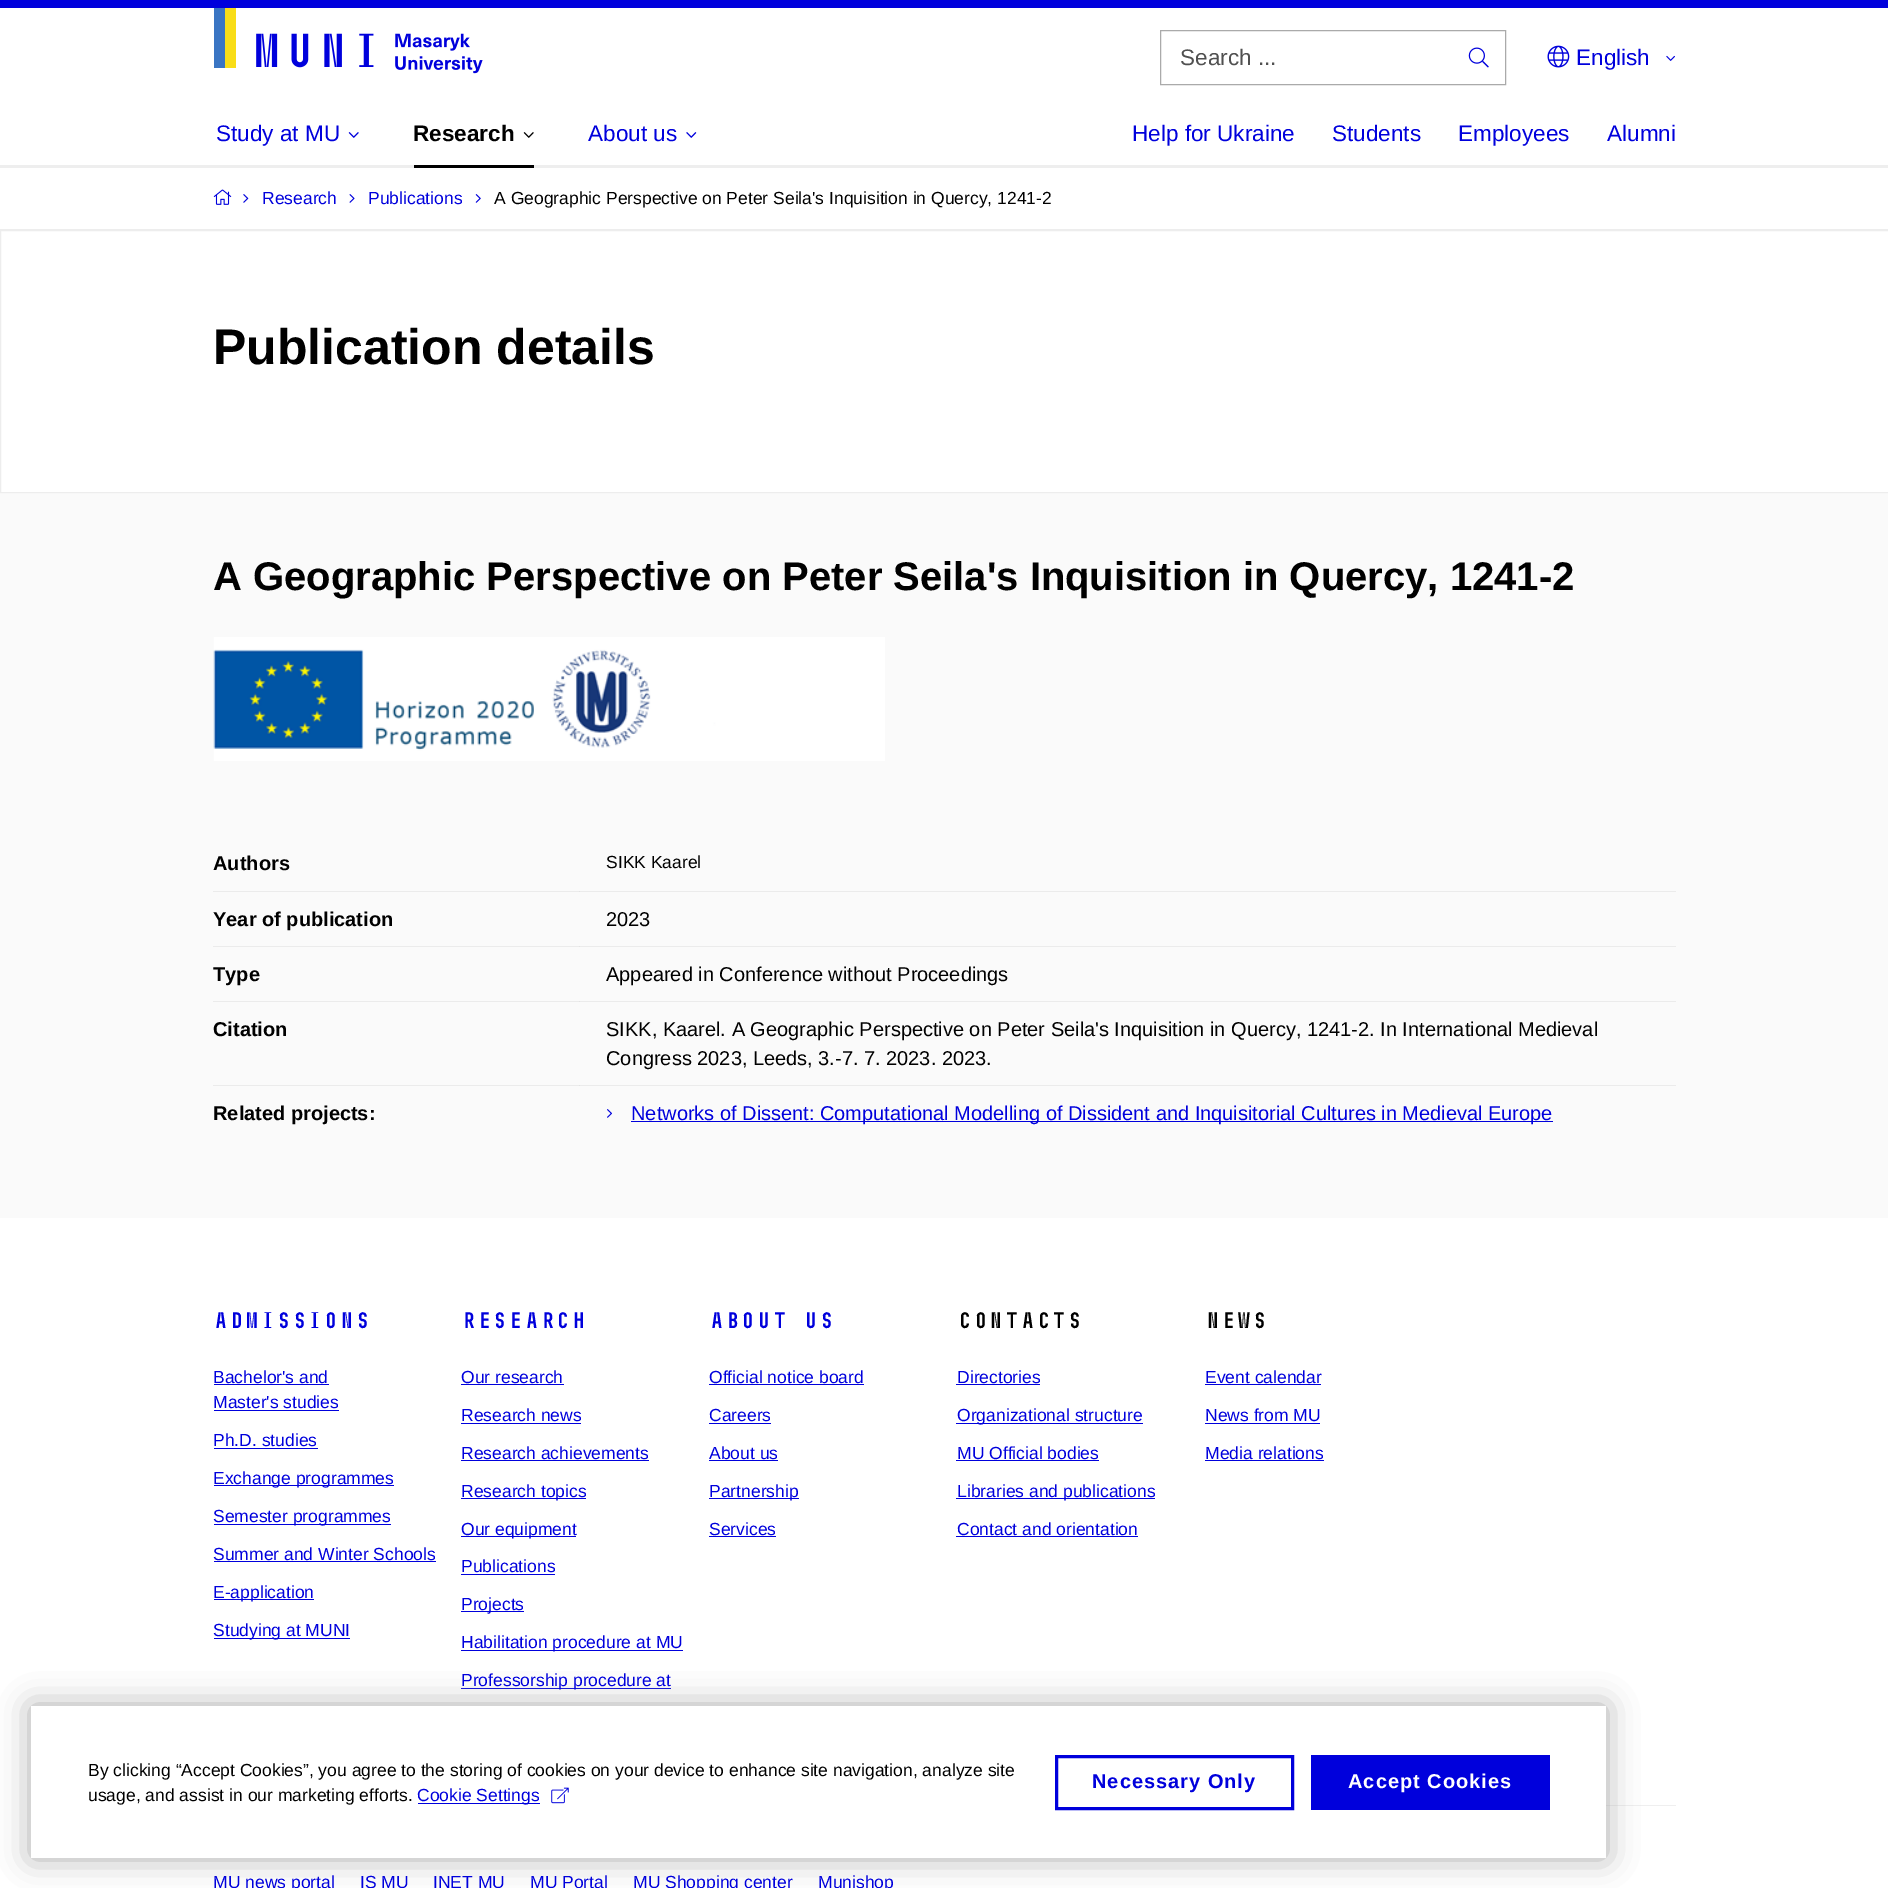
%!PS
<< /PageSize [1888 1888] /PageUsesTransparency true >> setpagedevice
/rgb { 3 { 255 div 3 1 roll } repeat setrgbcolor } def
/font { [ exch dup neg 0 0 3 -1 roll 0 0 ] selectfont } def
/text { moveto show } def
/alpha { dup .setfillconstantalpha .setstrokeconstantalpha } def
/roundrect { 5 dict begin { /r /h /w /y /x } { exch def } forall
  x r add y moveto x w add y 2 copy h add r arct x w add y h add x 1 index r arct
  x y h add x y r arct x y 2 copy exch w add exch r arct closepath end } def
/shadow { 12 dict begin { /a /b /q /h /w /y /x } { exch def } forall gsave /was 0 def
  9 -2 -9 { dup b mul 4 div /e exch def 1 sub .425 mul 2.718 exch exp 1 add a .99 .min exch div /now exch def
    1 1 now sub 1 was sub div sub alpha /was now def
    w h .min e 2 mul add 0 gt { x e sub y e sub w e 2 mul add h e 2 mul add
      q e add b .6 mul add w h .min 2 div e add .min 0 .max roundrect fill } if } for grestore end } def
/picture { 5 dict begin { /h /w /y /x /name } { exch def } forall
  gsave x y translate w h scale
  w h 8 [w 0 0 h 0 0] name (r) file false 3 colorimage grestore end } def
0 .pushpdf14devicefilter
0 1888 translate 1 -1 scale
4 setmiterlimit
250 250 250 rgb
0 0 1888 1888 rectfill
235 235 235 rgb
213 891 1463 1 rectfill
213 946 1463 1 rectfill
213 1001 1463 1 rectfill
213 1085 1463 1 rectfill
255 255 255 rgb
0 8 1888 157 rectfill
0 0 220 rgb
0 0 1888 8 rectfill
238 238 238 rgb
0 165 1888 3 rectfill
(img_01.rgb) 214 8 269 66 picture
170 170 170 rgb
1160.5 30.5 345 54 rectstroke
(img_02.rgb) 1468 47 21 21 picture
(img_03.rgb) 1547 45 23 23 picture
(img_04.rgb) 1666 55 9 6 picture
(img_05.rgb) 348 132 11 6 picture
0 0 0 rgb
414 165 120 3 rectfill
(img_06.rgb) 523 132 11 6 picture
(img_07.rgb) 686 132 11 6 picture
255 255 255 rgb
0 168 1888 61 rectfill
237 237 237 rgb
0 229 1888 1 rectfill
(img_08.rgb) 213 189 19 16 picture
(img_09.rgb) 243 194 6 9 picture
(img_10.rgb) 349 194 6 9 picture
(img_11.rgb) 475 194 6 9 picture
255 255 255 rgb
0.5 230.5 moveto 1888 0 rlineto 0 262 rlineto -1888 0 rlineto closepath gsave fill grestore
237 237 237 rgb
stroke
(img_12.rgb) 213 637 672 124 picture
227 227 227 rgb
579 891 1 1 rectfill
579 946 1 1 rectfill
579 1001 1 1 rectfill
579 1085 1 1 rectfill
(img_13.rgb) 607 1109 5 9 picture
0 0 220 rgb
631 1121 922 1 rectfill
255 255 255 rgb
0 1218 1888 670 rectfill
239 239 239 rgb
1606 1805 70 1 rectfill
0 0 220 rgb
214 1384 115 1 rectfill
214 1410 125 1 rectfill
214 1448 104 1 rectfill
214 1485 180 1 rectfill
214 1524 177 1 rectfill
214 1561 222 1 rectfill
214 1599 100 1 rectfill
214 1638 136 1 rectfill
461 1384 103 1 rectfill
461 1423 120 1 rectfill
461 1460 188 1 rectfill
461 1498 125 1 rectfill
461 1536 115 1 rectfill
461 1574 94 1 rectfill
461 1611 63 1 rectfill
461 1650 222 1 rectfill
461 1688 210 1 rectfill
709 1384 155 1 rectfill
709 1423 62 1 rectfill
709 1460 69 1 rectfill
709 1498 90 1 rectfill
709 1536 67 1 rectfill
956 1384 84 1 rectfill
956 1423 187 1 rectfill
956 1460 143 1 rectfill
956 1498 199 1 rectfill
956 1536 182 1 rectfill
1205 1384 116 1 rectfill
1205 1423 115 1 rectfill
1205 1460 119 1 rectfill
170 170 170 rgb
31 1706 1575 152 0 15.5 1 shadow
255 255 255 rgb
31 1706 1575 152 rectfill
0 0 220 rgb
418 1803 122 1 rectfill
(img_14.rgb) 551 1787 18 17 picture
3 setlinewidth
1056.5 1756.5 236 52 rectstroke
1311 1755 239 55 rectfill
/LiberationSans-Regular 22.5 font
80 80 80 rgb
(Search ...) 1180 65 text
0 0 220 rgb
(English) 1576 65 text
(Study at MU) 216 141 text
/LiberationSans-Bold 22.5 font
0 0 0 rgb
(Research) 413 141 text
/LiberationSans-Regular 22.5 font
0 0 220 rgb
(About us) 588 141 text
(Help for Ukraine) 1132 141 text
(Students) 1332 141 text
(Employees) 1458 141 text
(Alumni) 1607 141 text
/LiberationSans-Regular 17.5 font
(Research) 262 204 text
(Publications) 368 204 text
0 0 0 rgb
(A Geographic Perspective on Peter Seila's Inquisition in Quercy, 1241-2) 494 204 text
/LiberationSans-Bold 50 font
(Publication details) 213 364 text
/LiberationSans-Bold 40 font
(A Geographic Perspective on Peter Seila's Inquisition in Quercy, 1241-2) 213 590 text
/LiberationSans-Bold 20 font
(Authors) 213 870 text
/LiberationSans-Regular 17.5 font
(SIKK Kaarel) 606 868 text
/LiberationSans-Bold 20 font
(Year of publication) 213 926 text
/LiberationSans-Regular 20 font
(2023) 606 926 text
/LiberationSans-Bold 20 font
(Type) 213 981 text
/LiberationSans-Regular 20 font
(Appeared in Conference without Proceedings) 606 981 text
/LiberationSans-Bold 20 font
(Citation) 213 1036 text
/LiberationSans-Regular 20 font
(SIKK, Kaarel. A Geographic Perspective on Peter Seila's Inquisition in Quercy, 1241-2. In International Medieval) 606 1036 text
(Congress 2023, Leeds, 3.-7. 7. 2023. 2023.) 606 1065 text
/LiberationSans-Bold 20 font
(Related projects:) 213 1120 text
/LiberationSans-Regular 20 font
0 0 220 rgb
(Networks of Dissent: Computational Modelling of Dissident and Inquisitorial Cultures in Medieval Europe) 631 1120 text
/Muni-Bold 22.5 font
(Admissions) 213 1328 text
/LiberationSans-Regular 17.5 font
(Bachelor's and) 213 1383 text
(Master's studies) 213 1408 text
(Ph.D. studies) 213 1446 text
(Exchange programmes) 213 1484 text
(Semester programmes) 213 1522 text
(Summer and Winter Schools) 213 1560 text
(E-application) 213 1598 text
(Studying at MUNI) 213 1636 text
/Muni-Bold 22.5 font
(Research) 461 1328 text
/LiberationSans-Regular 17.5 font
(Our research) 461 1383 text
(Research news) 461 1421 text
(Research achievements) 461 1459 text
(Research topics) 461 1497 text
(Our equipment) 461 1535 text
(Publications) 461 1572 text
(Projects) 461 1610 text
(Habilitation procedure at MU) 461 1648 text
(Professorship procedure at) 461 1686 text
/Muni-Bold 22.5 font
(About us) 709 1328 text
/LiberationSans-Regular 17.5 font
(Official notice board) 709 1383 text
(Careers) 709 1421 text
(About us) 709 1459 text
(Partnership) 709 1497 text
(Services) 709 1535 text
/Muni-Bold 22.5 font
0 0 0 rgb
(Contacts) 957 1328 text
/LiberationSans-Regular 17.5 font
0 0 220 rgb
(Directories) 957 1383 text
(Organizational structure) 957 1421 text
(MU Official bodies) 957 1459 text
(Libraries and publications) 957 1497 text
(Contact and orientation) 957 1535 text
/Muni-Bold 22.5 font
0 0 0 rgb
(News) 1205 1328 text
/LiberationSans-Regular 17.5 font
0 0 220 rgb
(Event calendar) 1205 1383 text
(News from MU) 1205 1421 text
(Media relations) 1205 1459 text
(MU news portal) 213 1888 text
(IS MU) 360 1888 text
(INET MU) 433 1888 text
(MU Portal) 530 1888 text
(MU Shopping center) 633 1888 text
(Munishop) 818 1888 text
0 0 0 rgb
(By clicking “Accept Cookies”, you agree to the storing of cookies on your device to enhance site navigation, analyze site) 88 1776 text
(usage, and assist in our marketing efforts.) 88 1801 text
0 0 220 rgb
(Cookie Settings) 417 1801 text
/LiberationSans-Bold 20 font
1092 1788 moveto 1 0 (Necessary Only) ashow
255 255 255 rgb
1348 1788 moveto 1 0 (Accept Cookies) ashow
.poppdf14devicefilter showpage
